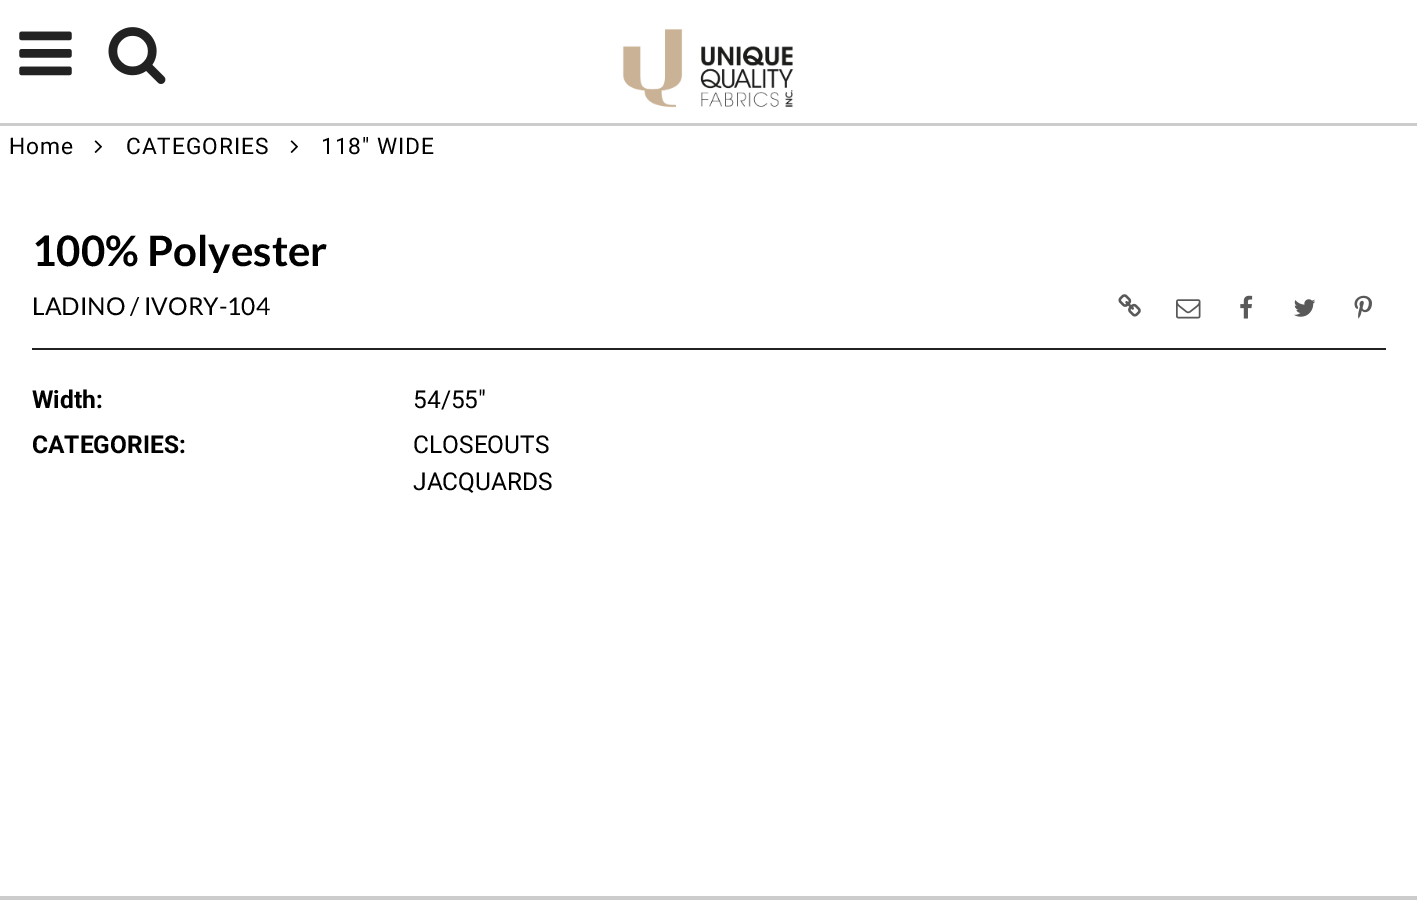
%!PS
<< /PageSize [1417 918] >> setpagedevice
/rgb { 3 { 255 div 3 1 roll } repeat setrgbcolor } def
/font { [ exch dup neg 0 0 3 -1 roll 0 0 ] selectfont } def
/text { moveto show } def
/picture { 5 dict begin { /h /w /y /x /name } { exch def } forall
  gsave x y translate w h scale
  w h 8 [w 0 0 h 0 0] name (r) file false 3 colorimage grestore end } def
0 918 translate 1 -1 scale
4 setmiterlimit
255 255 255 rgb
0 0 1417 918 rectfill
204 204 204 rgb
0 123 1417 3 rectfill
(img_01.rgb) 19 31 53 45 picture
(img_02.rgb) 108 27 58 57 picture
(img_03.rgb) 622 29 172 79 picture
(img_04.rgb) 94 140 8 13 picture
(img_04.rgb) 290 140 8 13 picture
(img_05.rgb) 1118 294 23 23 picture
(img_06.rgb) 1176 299 25 20 picture
(img_07.rgb) 1240 295 13 24 picture
(img_08.rgb) 1294 299 22 18 picture
(img_09.rgb) 1354 295 18 24 picture
34 34 34 rgb
32 348 1354 2 rectfill
204 204 204 rgb
0 896 1417 4 rectfill
/Roboto-Regular 22.75 font
0 0 0 rgb
9 154 moveto 0.9 0 (Home) ashow
126 154 moveto 0.9 0 (CATEGORIES) ashow
321 154 moveto 0.9 0 (118" WIDE) ashow
/Lato-Bold 42 font
(100% Polyester) 32 266 text
/Lato-Regular 24.5 font
(LADINO / IVORY-104) 32 315 text
/Roboto-Bold 24.5 font
(Width:) 32 408 text
/Roboto-Regular 24.5 font
(54/55") 413 408 text
/Roboto-Bold 24.5 font
(CATEGORIES:) 32 453 text
/Roboto-Regular 24.5 font
(CLOSEOUTS) 413 453 text
(JACQUARDS) 413 490 text
showpage
